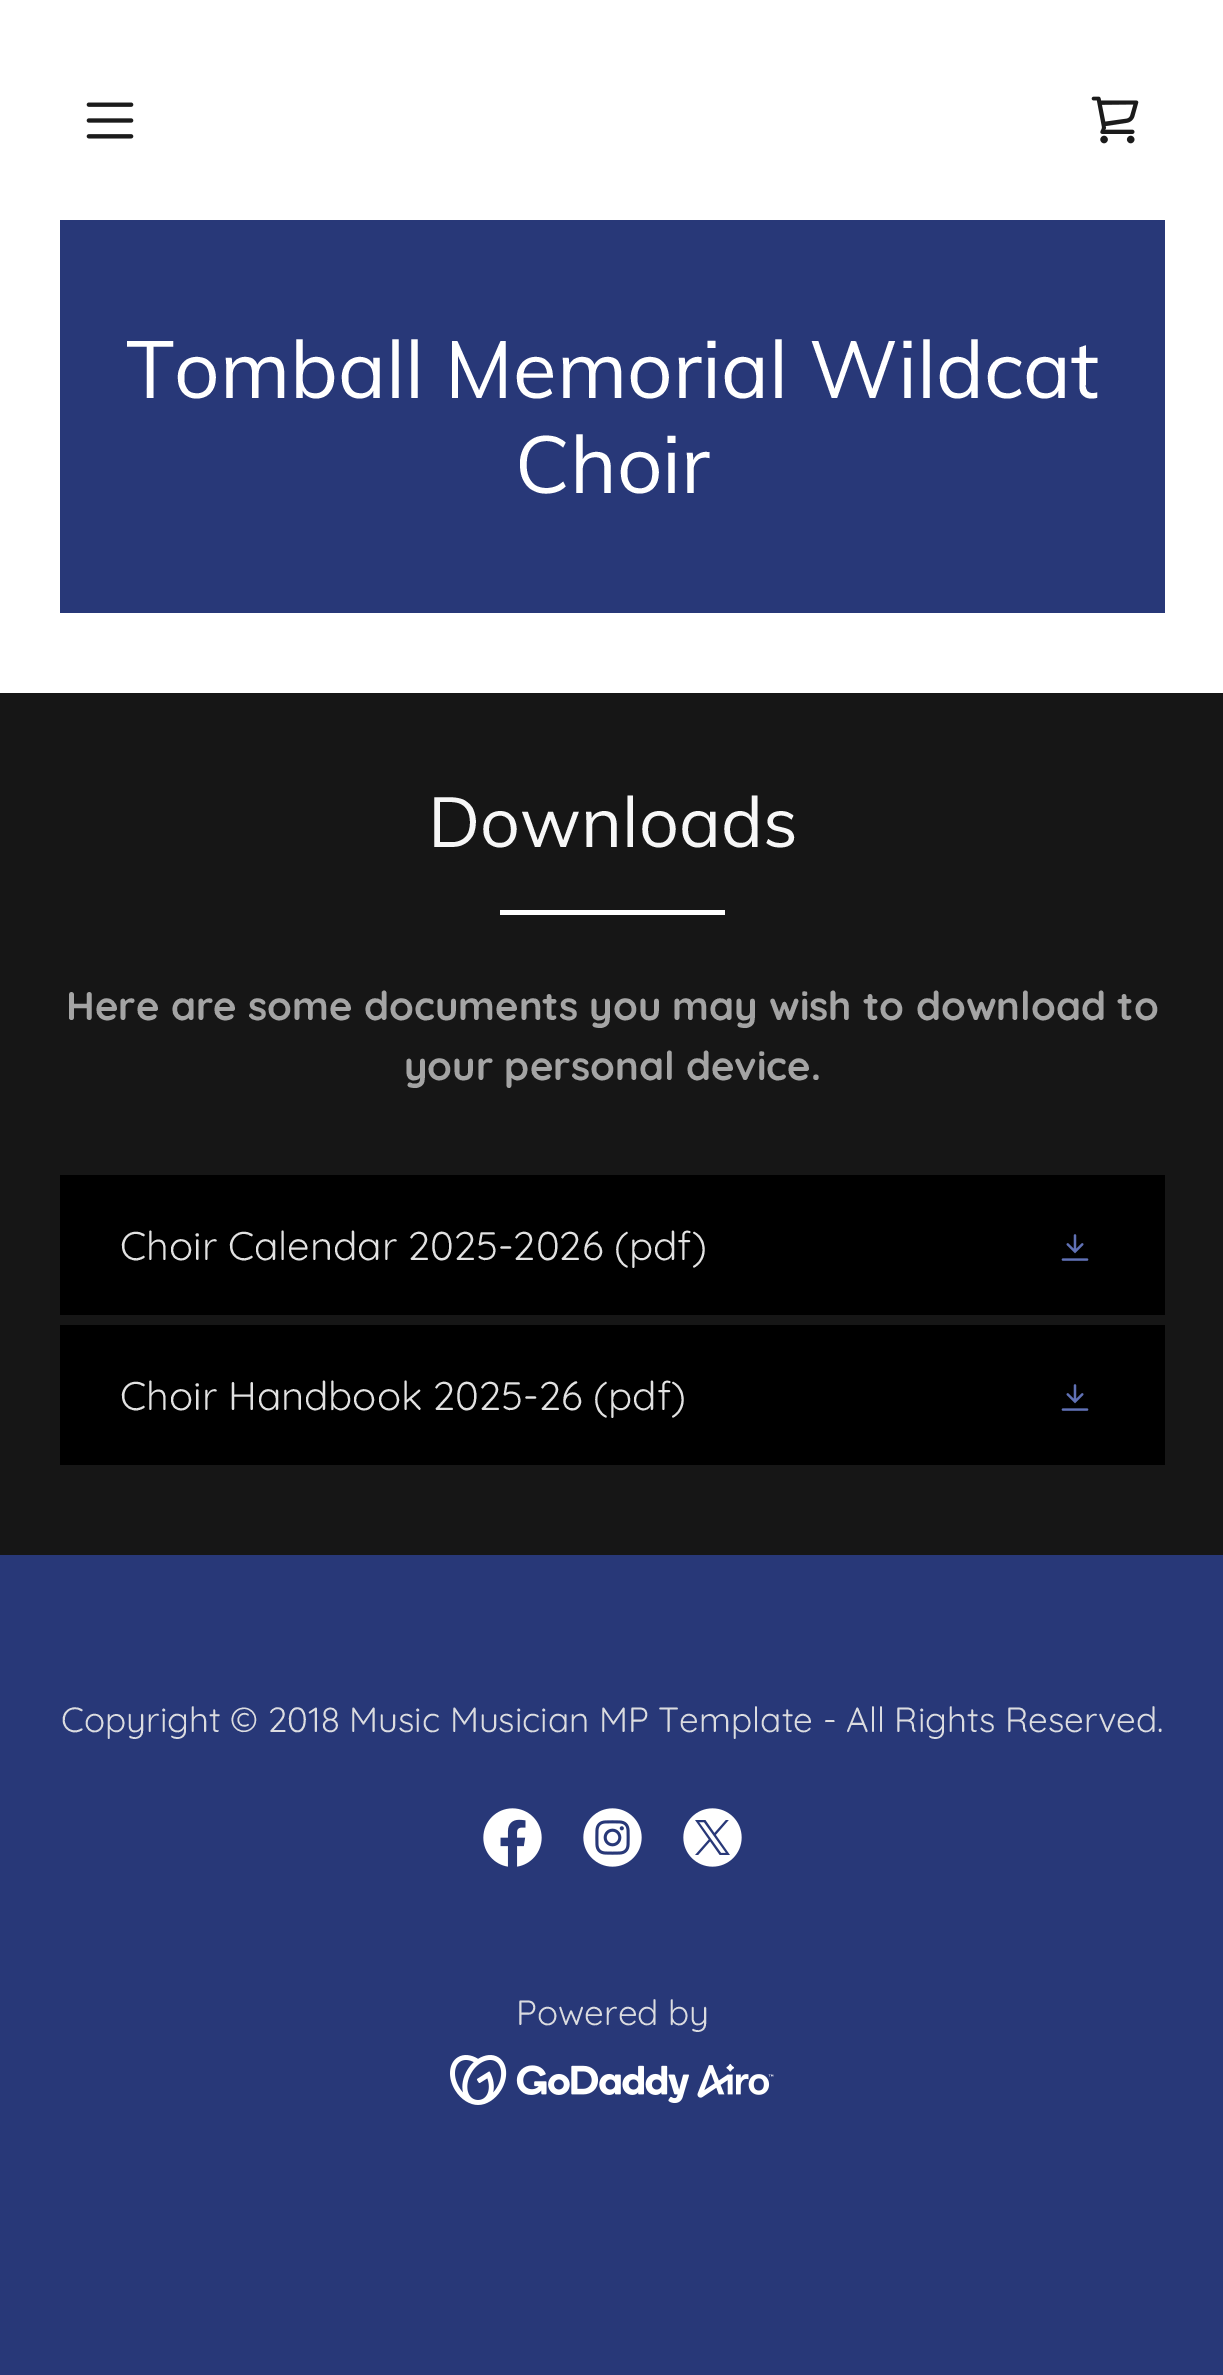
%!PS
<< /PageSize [1223 2375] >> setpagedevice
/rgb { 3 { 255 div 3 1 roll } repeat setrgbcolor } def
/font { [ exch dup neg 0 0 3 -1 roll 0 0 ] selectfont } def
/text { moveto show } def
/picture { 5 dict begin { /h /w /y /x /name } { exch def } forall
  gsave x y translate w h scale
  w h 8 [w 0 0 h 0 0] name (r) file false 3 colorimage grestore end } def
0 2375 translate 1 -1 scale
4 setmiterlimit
40 56 120 rgb
0 0 1223 2375 rectfill
255 255 255 rgb
0 0 1223 693 rectfill
(img_01.rgb) 86 102 48 37 picture
(img_02.rgb) 1091 96 48 48 picture
40 56 120 rgb
60 220 1105 393 rectfill
22 22 22 rgb
0 693 1223 862 rectfill
255 255 255 rgb
500 910 225 5 rectfill
0 0 0 rgb
60 1175 1105 140 rectfill
(img_03.rgb) 1061 1234 28 27 picture
60 1325 1105 140 rectfill
(img_03.rgb) 1061 1384 28 27 picture
(img_04.rgb) 483 1808 59 59 picture
(img_05.rgb) 583 1808 59 59 picture
(img_06.rgb) 683 1808 59 59 picture
(img_07.rgb) 450 2055 324 50 picture
/Muli-Regular 80 font
255 255 255 rgb
(Tomball Memorial Wildcat) 126 398 text
(Choir) 515 493 text
/Muli-Regular 70 font
247 247 247 rgb
(Downloads) 428 847 text
/Quicksand-Bold 40 font
164 164 164 rgb
(Here are some documents you may wish to download to) 66 1020 text
(your personal device.) 404 1080 text
/Quicksand-Regular 40 font
226 226 226 rgb
(Choir Calendar 2025-2026 \(pdf\)) 120 1260 text
(Choir Handbook 2025-26 \(pdf\)) 120 1410 text
/Quicksand-Regular 35 font
219 220 224 rgb
(Copyright © 2018 Music Musician MP Template - All Rights Reserved.) 61 1732 text
(Powered by) 516 2025 text
showpage
